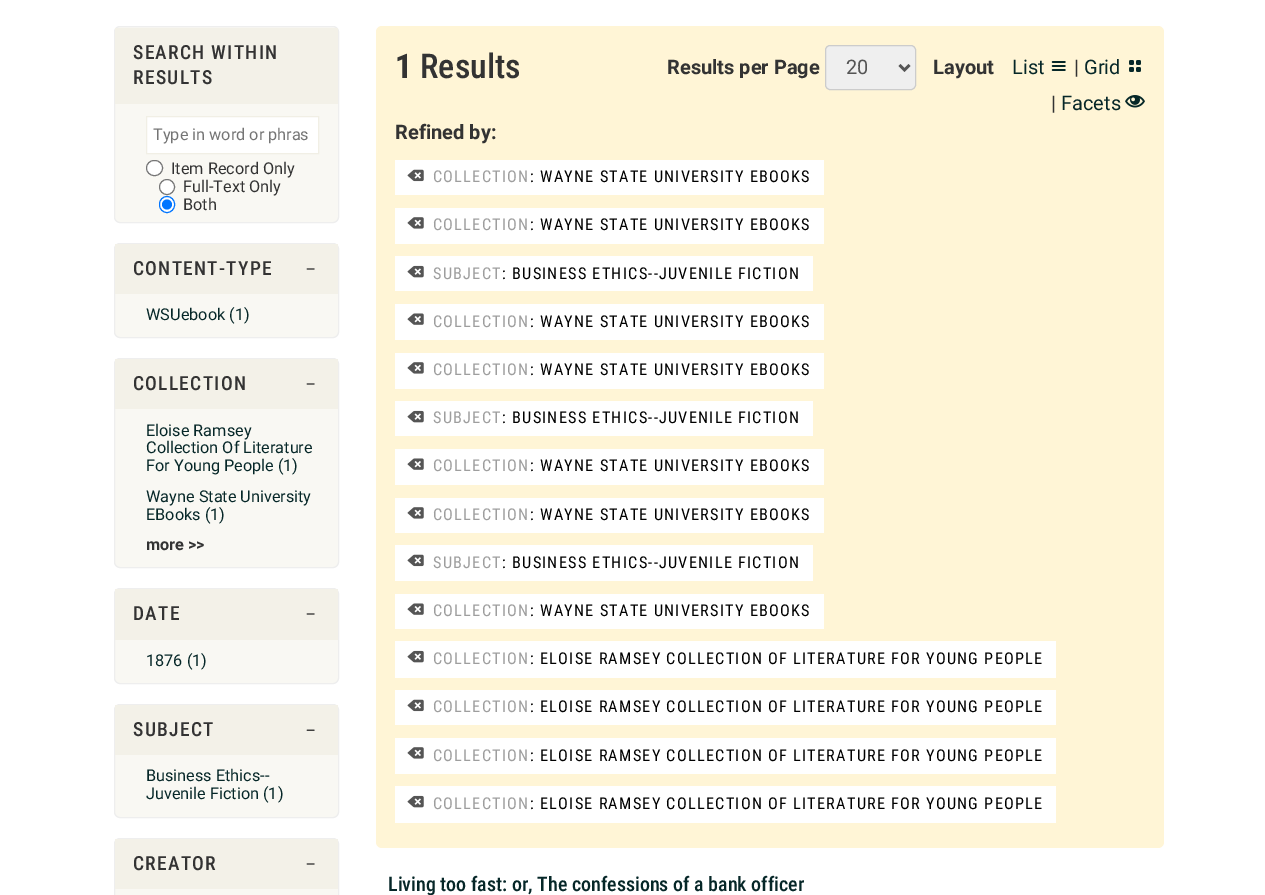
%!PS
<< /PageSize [1265 895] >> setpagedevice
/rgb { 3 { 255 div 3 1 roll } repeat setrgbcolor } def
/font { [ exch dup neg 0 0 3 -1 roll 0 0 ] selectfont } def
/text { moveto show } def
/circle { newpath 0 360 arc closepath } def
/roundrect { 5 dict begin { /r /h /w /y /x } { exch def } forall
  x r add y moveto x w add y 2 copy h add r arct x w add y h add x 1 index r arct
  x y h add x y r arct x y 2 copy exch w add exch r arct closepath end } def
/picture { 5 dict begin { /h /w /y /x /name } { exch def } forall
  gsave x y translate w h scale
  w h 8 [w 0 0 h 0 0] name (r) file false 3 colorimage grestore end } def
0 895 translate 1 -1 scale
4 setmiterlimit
255 255 255 rgb
0 0 1265 895 rectfill
249 248 243 rgb
114.5 26.5 224 196 5.5 roundrect gsave fill grestore
238 238 238 rgb
stroke
243 241 232 rgb
115 28 223 76 rectfill
255 255 255 rgb
146.5 116.5 moveto 172 0 rlineto 0 37 rlineto -172 0 rlineto closepath gsave fill grestore
241 239 229 rgb
stroke
255 255 255 rgb
146.5 160.5 16 15 7.5 roundrect gsave fill grestore
118 118 118 rgb
stroke
255 255 255 rgb
167 187 7.5 circle gsave fill grestore
118 118 118 rgb
stroke
255 255 255 rgb
159.5 196.5 15 16 7.5 roundrect gsave fill grestore
0 117 255 rgb
stroke
167 204.5 5 circle fill
249 248 243 rgb
114.5 243.5 224 94 5.5 roundrect gsave fill grestore
238 238 238 rgb
stroke
243 241 232 rgb
115 244 223 50 rectfill
(img_01.rgb) 306 268 9 2 picture
249 248 243 rgb
114.5 358.5 224 209 5.5 roundrect gsave fill grestore
238 238 238 rgb
stroke
243 241 232 rgb
115 359 223 50 rectfill
(img_01.rgb) 306 383 9 2 picture
249 248 243 rgb
114.5 588.5 224 95 5.5 roundrect gsave fill grestore
238 238 238 rgb
stroke
243 241 232 rgb
115 589 223 51 rectfill
(img_01.rgb) 306 613 9 2 picture
249 248 243 rgb
114.5 704.5 224 113 5.5 roundrect gsave fill grestore
238 238 238 rgb
stroke
243 241 232 rgb
115 705 223 50 rectfill
(img_02.rgb) 306 729 9 2 picture
249 248 243 rgb
114.5 838.5 224 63 5.5 roundrect gsave fill grestore
238 238 238 rgb
stroke
243 241 232 rgb
115 839 223 50 rectfill
(img_01.rgb) 306 863 9 2 picture
255 245 214 rgb
376 26 788 822 6 roundrect fill
239 239 239 rgb
825.5 45.5 90 44 4.5 roundrect gsave fill grestore
204 204 204 rgb
stroke
85 85 85 rgb
2.5 setlinewidth
899.5 65 moveto 5 5 rlineto 5 -5 rlineto stroke
(img_03.rgb) 1051 61 15 10 picture
(img_04.rgb) 1129 60 12 12 picture
(img_05.rgb) 1125 95 20 13 picture
255 255 255 rgb
395 160 429 35 rectfill
(img_06.rgb) 407 169 17 13 picture
395 208 429 36 rectfill
(img_07.rgb) 407 217 17 12 picture
395 256 418 35 rectfill
(img_08.rgb) 407 265 17 13 picture
395 304 429 36 rectfill
(img_09.rgb) 407 313 17 12 picture
395 353 429 36 rectfill
(img_07.rgb) 407 362 17 12 picture
395 401 418 35 rectfill
(img_08.rgb) 407 410 17 13 picture
395 449 429 36 rectfill
(img_09.rgb) 407 458 17 12 picture
395 498 429 35 rectfill
(img_07.rgb) 407 507 17 12 picture
395 545 418 36 rectfill
(img_06.rgb) 407 554 17 13 picture
395 594 429 35 rectfill
(img_09.rgb) 407 603 17 12 picture
395 641 661 37 rectfill
(img_08.rgb) 407 650 17 13 picture
395 690 661 35 rectfill
(img_06.rgb) 407 699 17 13 picture
395 738 661 36 rectfill
(img_07.rgb) 407 747 17 12 picture
395 786 661 37 rectfill
(img_08.rgb) 407 795 17 13 picture
/RobotoCondensed-Medium 19.5 font
51 51 51 rgb
133 59 moveto 1.25 0 (SEARCH WITHIN) ashow
133 84 moveto 1.25 0 (RESULTS) ashow
/Roboto-Regular 16.25 font
117 117 117 rgb
(Type in word or phras) 153 140 text
51 51 51 rgb
(Item Record Only) 171 174 text
(Full-Text Only) 183 192 text
(Both) 183 210 text
/RobotoCondensed-Medium 19.5 font
133 275 moveto 1.25 0 (CONTENT-TYPE) ashow
/Roboto-Regular 16.25 font
6 39 40 rgb
(WSUebook \(1\)) 146 320 text
/RobotoCondensed-Medium 19.5 font
51 51 51 rgb
133 390 moveto 1.25 0 (COLLECTION) ashow
/Roboto-Regular 16.25 font
6 39 40 rgb
(Eloise Ramsey) 146 436 text
(Collection Of Literature) 146 453 text
(For Young People \(1\)) 146 471 text
(Wayne State University) 146 502 text
(EBooks \(1\)) 146 520 text
/Roboto-Bold 16.25 font
51 51 51 rgb
(more >>) 146 550 text
/RobotoCondensed-Medium 19.5 font
133 620 moveto 1.25 0 (DATE) ashow
/Roboto-Regular 16.25 font
6 39 40 rgb
(1876 \(1\)) 146 666 text
/RobotoCondensed-Medium 19.5 font
51 51 51 rgb
133 736 moveto 1.25 0 (SUBJECT) ashow
/Roboto-Regular 16.25 font
6 39 40 rgb
(Business Ethics--) 146 781 text
(Juvenile Fiction \(1\)) 146 799 text
/RobotoCondensed-Medium 19.5 font
51 51 51 rgb
133 870 moveto 1.25 0 (CREATOR) ashow
/RobotoCondensed-Bold 34 font
(1) 395 78 text
/RobotoCondensed-Medium 34 font
(Results) 420 78 text
/Roboto-Bold 20 font
(Results per Page) 667 74 text
/Roboto-Regular 20 font
85 85 85 rgb
(20) 846 74 text
/Roboto-Bold 20 font
51 51 51 rgb
(Layout) 933 74 text
/Roboto-Regular 20 font
6 39 40 rgb
(List) 1012 74 text
51 51 51 rgb
(|) 1074 74 text
6 39 40 rgb
(Grid) 1084 74 text
51 51 51 rgb
(|) 1051 110 text
6 39 40 rgb
(Facets) 1061 110 text
/Roboto-Bold 20 font
51 51 51 rgb
(Refined by:) 395 139 text
/RobotoCondensed-Regular 16.25 font
158 158 158 rgb
433 182 moveto 1.25 0 (COLLECTION) ashow
0 0 0 rgb
530 182 moveto 1.25 0 (: WAYNE STATE UNIVERSITY EBOOKS) ashow
158 158 158 rgb
433 230 moveto 1.25 0 (COLLECTION) ashow
0 0 0 rgb
530 230 moveto 1.25 0 (: WAYNE STATE UNIVERSITY EBOOKS) ashow
158 158 158 rgb
433 279 moveto 1.25 0 (SUBJECT) ashow
0 0 0 rgb
502 279 moveto 1.25 0 (: BUSINESS ETHICS--JUVENILE FICTION) ashow
158 158 158 rgb
433 327 moveto 1.25 0 (COLLECTION) ashow
0 0 0 rgb
530 327 moveto 1.25 0 (: WAYNE STATE UNIVERSITY EBOOKS) ashow
158 158 158 rgb
433 375 moveto 1.25 0 (COLLECTION) ashow
0 0 0 rgb
530 375 moveto 1.25 0 (: WAYNE STATE UNIVERSITY EBOOKS) ashow
158 158 158 rgb
433 423 moveto 1.25 0 (SUBJECT) ashow
0 0 0 rgb
502 423 moveto 1.25 0 (: BUSINESS ETHICS--JUVENILE FICTION) ashow
158 158 158 rgb
433 471 moveto 1.25 0 (COLLECTION) ashow
0 0 0 rgb
530 471 moveto 1.25 0 (: WAYNE STATE UNIVERSITY EBOOKS) ashow
158 158 158 rgb
433 520 moveto 1.25 0 (COLLECTION) ashow
0 0 0 rgb
530 520 moveto 1.25 0 (: WAYNE STATE UNIVERSITY EBOOKS) ashow
158 158 158 rgb
433 568 moveto 1.25 0 (SUBJECT) ashow
0 0 0 rgb
502 568 moveto 1.25 0 (: BUSINESS ETHICS--JUVENILE FICTION) ashow
158 158 158 rgb
433 616 moveto 1.25 0 (COLLECTION) ashow
0 0 0 rgb
530 616 moveto 1.25 0 (: WAYNE STATE UNIVERSITY EBOOKS) ashow
158 158 158 rgb
433 664 moveto 1.25 0 (COLLECTION) ashow
0 0 0 rgb
530 664 moveto 1.25 0 (: ELOISE RAMSEY COLLECTION OF LITERATURE FOR YOUNG PEOPLE) ashow
158 158 158 rgb
433 712 moveto 1.25 0 (COLLECTION) ashow
0 0 0 rgb
530 712 moveto 1.25 0 (: ELOISE RAMSEY COLLECTION OF LITERATURE FOR YOUNG PEOPLE) ashow
158 158 158 rgb
433 761 moveto 1.25 0 (COLLECTION) ashow
0 0 0 rgb
530 761 moveto 1.25 0 (: ELOISE RAMSEY COLLECTION OF LITERATURE FOR YOUNG PEOPLE) ashow
158 158 158 rgb
433 809 moveto 1.25 0 (COLLECTION) ashow
0 0 0 rgb
530 809 moveto 1.25 0 (: ELOISE RAMSEY COLLECTION OF LITERATURE FOR YOUNG PEOPLE) ashow
/RobotoCondensed-Medium 20 font
6 39 40 rgb
(Living too fast: or, The confessions of a bank officer) 388 891 text
showpage
